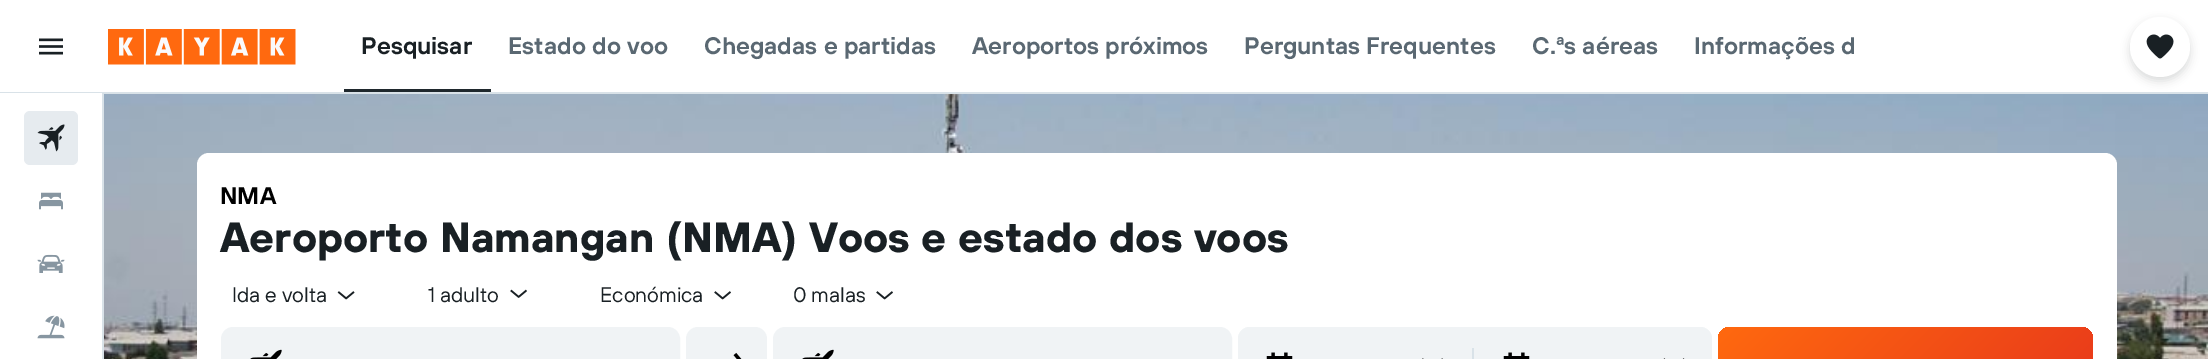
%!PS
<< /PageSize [2208 359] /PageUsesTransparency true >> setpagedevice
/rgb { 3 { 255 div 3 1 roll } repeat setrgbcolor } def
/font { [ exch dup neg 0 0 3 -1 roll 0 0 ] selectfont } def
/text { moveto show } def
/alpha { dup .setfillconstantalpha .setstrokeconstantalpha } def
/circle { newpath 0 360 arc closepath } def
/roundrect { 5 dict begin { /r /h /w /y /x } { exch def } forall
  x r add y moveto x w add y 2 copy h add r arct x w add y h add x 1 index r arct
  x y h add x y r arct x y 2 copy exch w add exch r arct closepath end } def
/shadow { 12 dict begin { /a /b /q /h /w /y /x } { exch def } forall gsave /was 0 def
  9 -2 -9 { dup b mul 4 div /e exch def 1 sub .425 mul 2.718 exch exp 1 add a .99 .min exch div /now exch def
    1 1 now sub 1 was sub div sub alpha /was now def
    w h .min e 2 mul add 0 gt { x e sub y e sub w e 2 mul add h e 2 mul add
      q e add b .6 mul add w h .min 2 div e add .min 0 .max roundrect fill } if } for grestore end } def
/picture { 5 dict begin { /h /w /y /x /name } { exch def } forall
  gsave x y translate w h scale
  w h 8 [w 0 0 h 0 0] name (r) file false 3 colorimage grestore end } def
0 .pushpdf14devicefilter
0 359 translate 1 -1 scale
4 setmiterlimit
255 255 255 rgb
0 0 2208 359 rectfill
217 226 232 rgb
0 92 2208 2 rectfill
(img_01.rgb) 39 38 24 17 picture
(img_02.rgb) 108 29 188 36 picture
31 40 45 rgb
344 89 147 3 rectfill
(img_08.rgb) 104 94 2104 265 picture
25 32 36 rgb
2130 21 60 60 30 4.5 0.16 shadow
255 255 255 rgb
2160 47 30 circle fill
(img_03.rgb) 2146 34 28 25 picture
0 93 102 1 rectfill
217 226 232 rgb
102 93 2 266 rectfill
230 235 239 rgb
24 111 54 54 6 roundrect fill
(img_04.rgb) 37 124 28 28 picture
(img_05.rgb) 39 192 24 18 picture
(img_06.rgb) 37 254 28 19 picture
(img_07.rgb) 37 315 28 24 picture
255 255 255 rgb
197 153 1920 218 12 roundrect fill
(img_09.rgb) 337 291 18 9 picture
(img_10.rgb) 510 289 17 9 picture
(img_11.rgb) 714 291 17 9 picture
(img_11.rgb) 876 291 17 9 picture
240 243 245 rgb
222 328 457 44 11 roundrect gsave fill grestore
2 setlinewidth
stroke
(img_12.rgb) 250 349 32 10 picture
686 327 81 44 12 roundrect fill
(img_13.rgb) 733 352 9 7 picture
774 328 457 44 11 roundrect gsave fill grestore
stroke
(img_12.rgb) 802 349 32 10 picture
1238 327 474 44 12 roundrect fill
1238 327 232 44 12 roundrect fill
(img_14.rgb) 1266 352 27 7 picture
(img_15.rgb) 1422 358 2 1 picture
(img_16.rgb) 1441 358 2 1 picture
217 226 232 rgb
1472 348 2 11 rectfill
240 243 245 rgb
1475 327 237 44 12 roundrect fill
(img_14.rgb) 1503 352 27 7 picture
(img_17.rgb) 1663 358 3 1 picture
(img_18.rgb) 1682 358 3 1 picture
gsave 1718 327 375 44 12 roundrect clip newpath
<< /ShadingType 2 /ColorSpace /DeviceRGB /Coords [1792 253 2018 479] /Extend [true true] /Function << /FunctionType 2 /Domain [0 1] /C0 [1 0.412 0.059] /C1 [0.91 0.22 0.106] /N 1 >> >> shfill grestore
/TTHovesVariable-SemiBold 24 font
25 32 36 rgb
(Pesquisar) 361 54 text
90 104 114 rgb
(Estado do voo) 508 54 text
(Chegadas e partidas) 704 54 text
(Aeroportos próximos) 972 54 text
(Perguntas Frequentes) 1244 54 text
(C.ªs aéreas) 1532 54 text
(Informações d) 1694 54 text
0 0 0 rgb
(NMA) 220 204 text
/TTHovesVariable-Bold 42 font
25 32 36 rgb
(Aeroporto Namangan \(NMA\) Voos e estado dos voos) 220 252 text
/TTHovesVariable-Regular 21 font
(Ida e volta) 232 302 text
(1 adulto) 428 302 text
(Económica) 600 302 text
(0 malas) 793 302 text
.poppdf14devicefilter showpage
